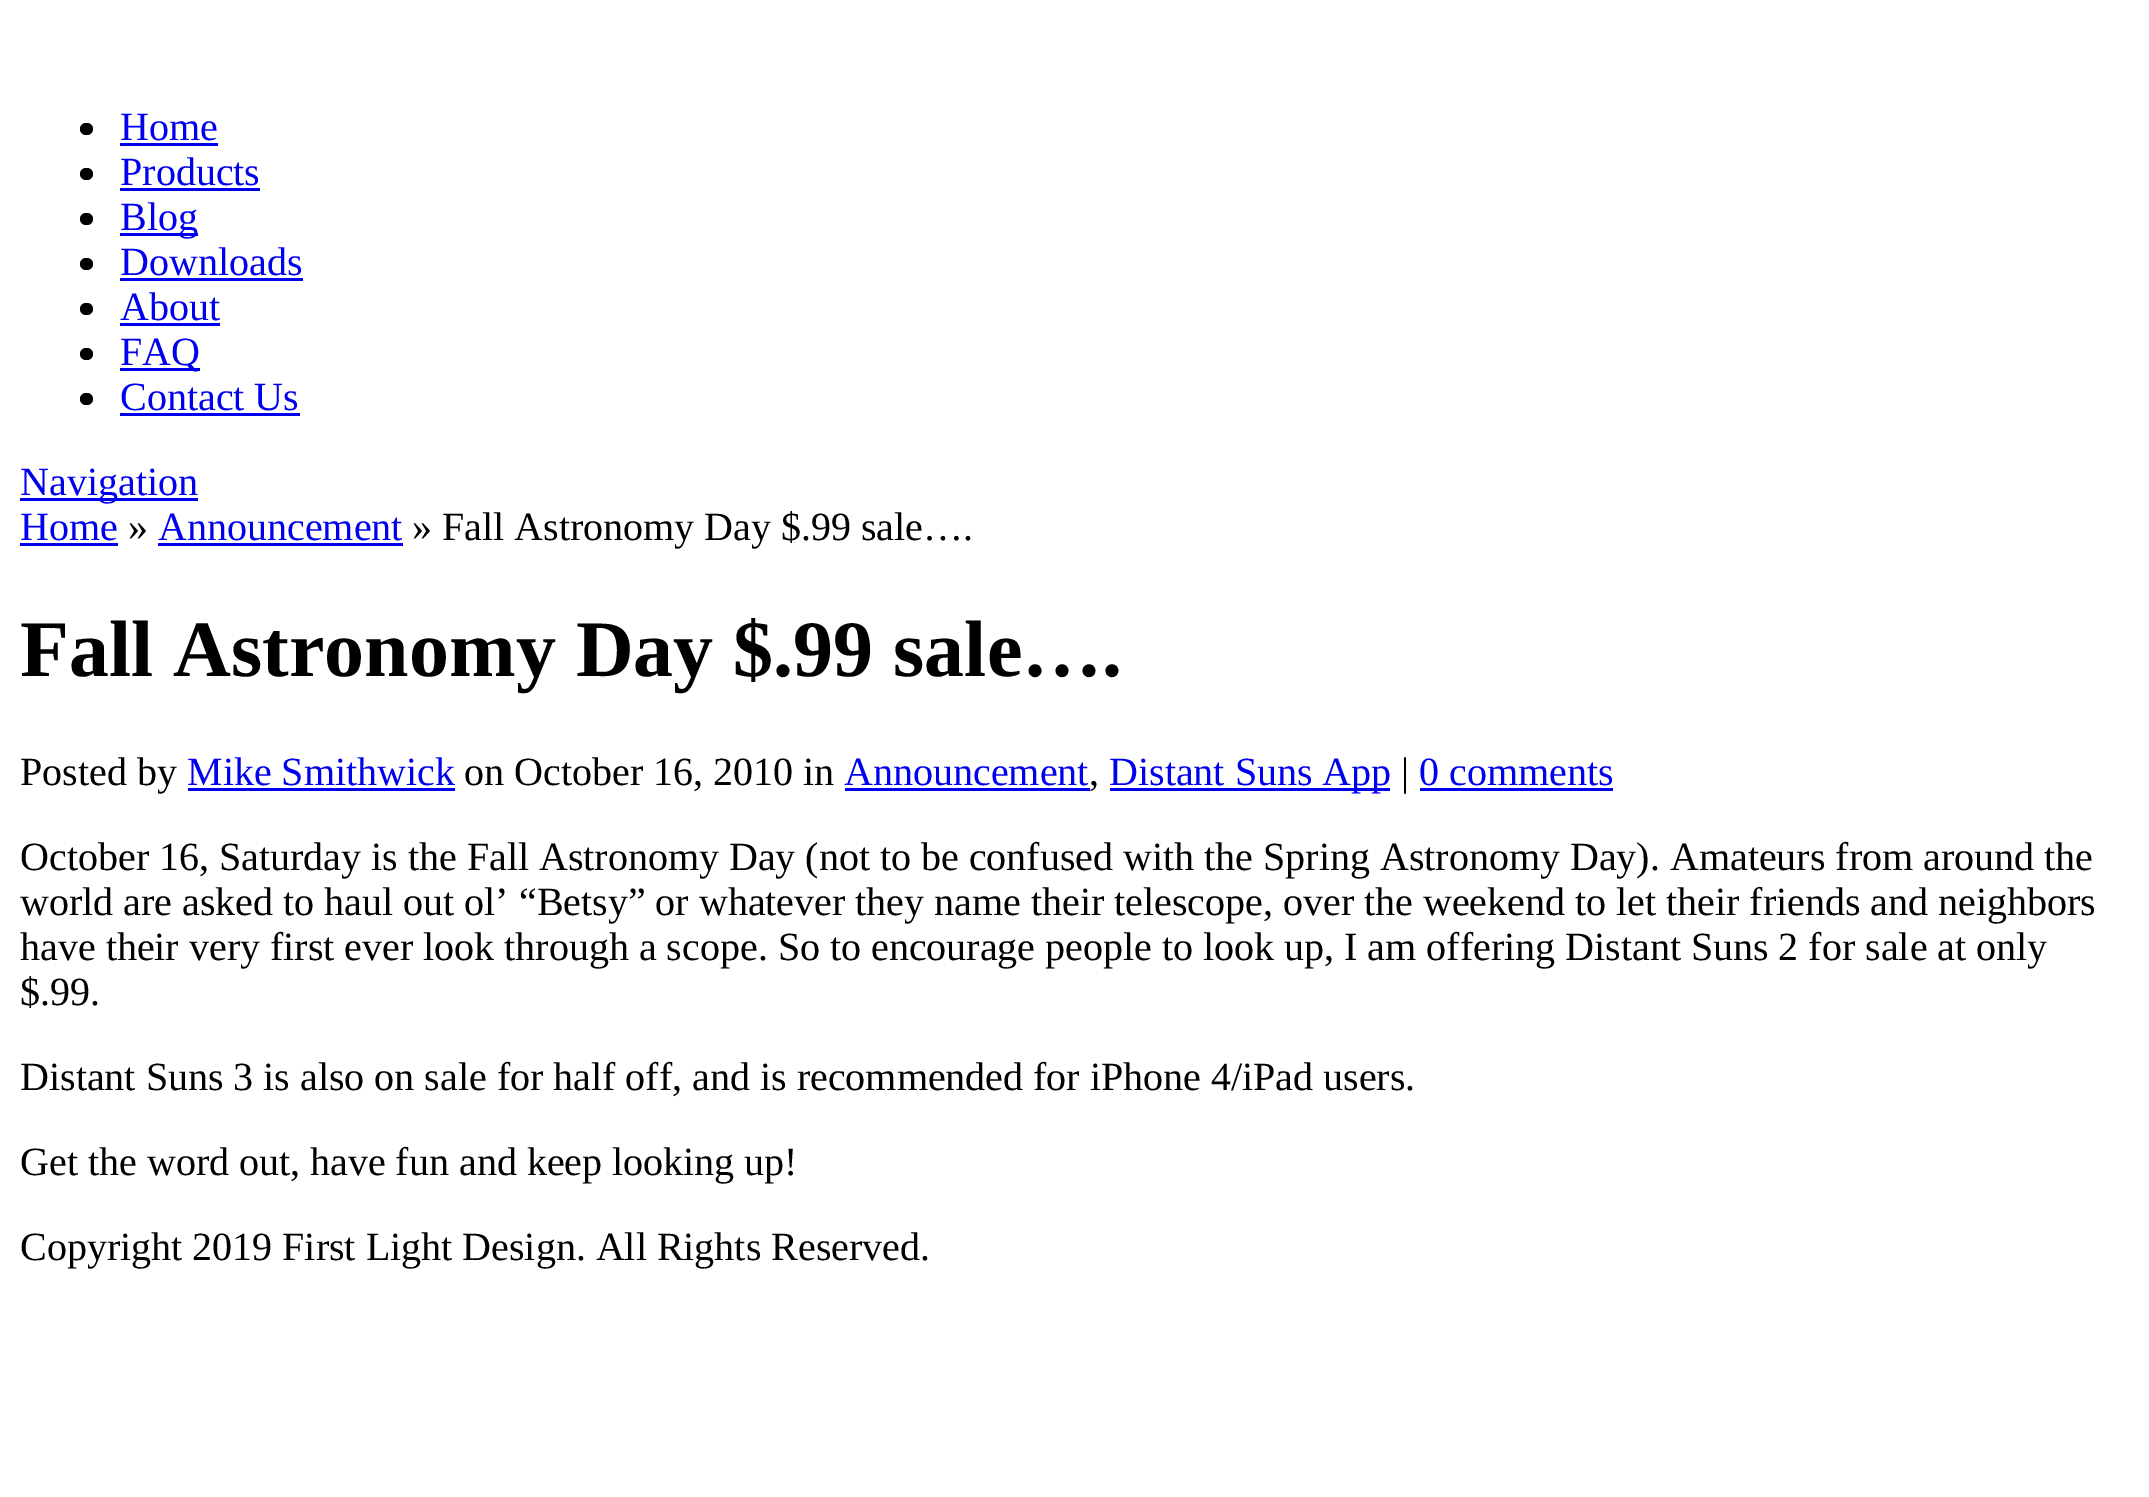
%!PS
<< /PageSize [2149 1497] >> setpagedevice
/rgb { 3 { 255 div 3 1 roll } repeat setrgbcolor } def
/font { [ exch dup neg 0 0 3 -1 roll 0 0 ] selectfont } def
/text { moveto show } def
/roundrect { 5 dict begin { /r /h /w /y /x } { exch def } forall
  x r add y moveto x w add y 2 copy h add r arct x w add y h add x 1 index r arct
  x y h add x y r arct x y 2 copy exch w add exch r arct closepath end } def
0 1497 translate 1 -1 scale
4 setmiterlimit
255 255 255 rgb
0 0 2149 1497 rectfill
0 0 0 rgb
80 123 13 12 6 roundrect fill
0 0 238 rgb
120 143 98 3 rectfill
0 0 0 rgb
80 168 13 12 6 roundrect fill
0 0 238 rgb
120 188 140 3 rectfill
0 0 0 rgb
80 213 13 12 6 roundrect fill
0 0 238 rgb
120 233 78 3 rectfill
0 0 0 rgb
80 258 13 12 6 roundrect fill
0 0 238 rgb
120 278 183 3 rectfill
0 0 0 rgb
80 303 13 12 6 roundrect fill
0 0 238 rgb
120 323 100 3 rectfill
0 0 0 rgb
80 348 13 12 6 roundrect fill
0 0 238 rgb
120 368 80 3 rectfill
0 0 0 rgb
80 393 13 12 6 roundrect fill
0 0 238 rgb
120 413 180 3 rectfill
20 498 178 3 rectfill
20 543 98 3 rectfill
158 543 245 3 rectfill
188 788 267 3 rectfill
845 788 245 3 rectfill
1110 788 280 3 rectfill
1420 788 193 3 rectfill
/LiberationSerif-Regular 40 font
(Home) 120 140 text
(Products) 120 185 text
(Blog) 120 230 text
(Downloads) 120 275 text
(About) 120 320 text
(FAQ) 120 365 text
(Contact Us) 120 410 text
(Navigation) 20 495 text
(Home) 20 540 text
0 0 0 rgb
(») 128 540 text
0 0 238 rgb
(Announcement) 158 540 text
0 0 0 rgb
(» Fall Astronomy Day $.99 sale….) 412 540 text
/LiberationSerif-Bold 80 font
(Fall Astronomy Day $.99 sale….) 20 676 text
/LiberationSerif-Regular 40 font
(Posted by) 20 785 text
0 0 238 rgb
(Mike Smithwick) 187 785 text
0 0 0 rgb
(on October 16, 2010 in) 464 785 text
0 0 238 rgb
(Announcement) 844 785 text
0 0 0 rgb
(,) 1089 785 text
0 0 238 rgb
(Distant Suns App) 1109 785 text
0 0 0 rgb
(|) 1401 785 text
0 0 238 rgb
(0 comments) 1419 785 text
0 0 0 rgb
(October 16, Saturday is the Fall Astronomy Day \(not to be confused with the Spring Astronomy Day\). Amateurs from around the) 20 870 text
(world are asked to haul out ol’ “Betsy” or whatever they name their telescope, over the weekend to let their friends and neighbors) 20 915 text
(have their very first ever look through a scope. So to encourage people to look up, I am offering Distant Suns 2 for sale at only) 20 960 text
($.99.) 20 1005 text
(Distant Suns 3 is also on sale for half off, and is recommended for iPhone 4/iPad users.) 20 1090 text
(Get the word out, have fun and keep looking up!) 20 1175 text
(Copyright 2019 First Light Design. All Rights Reserved.) 20 1260 text
showpage
